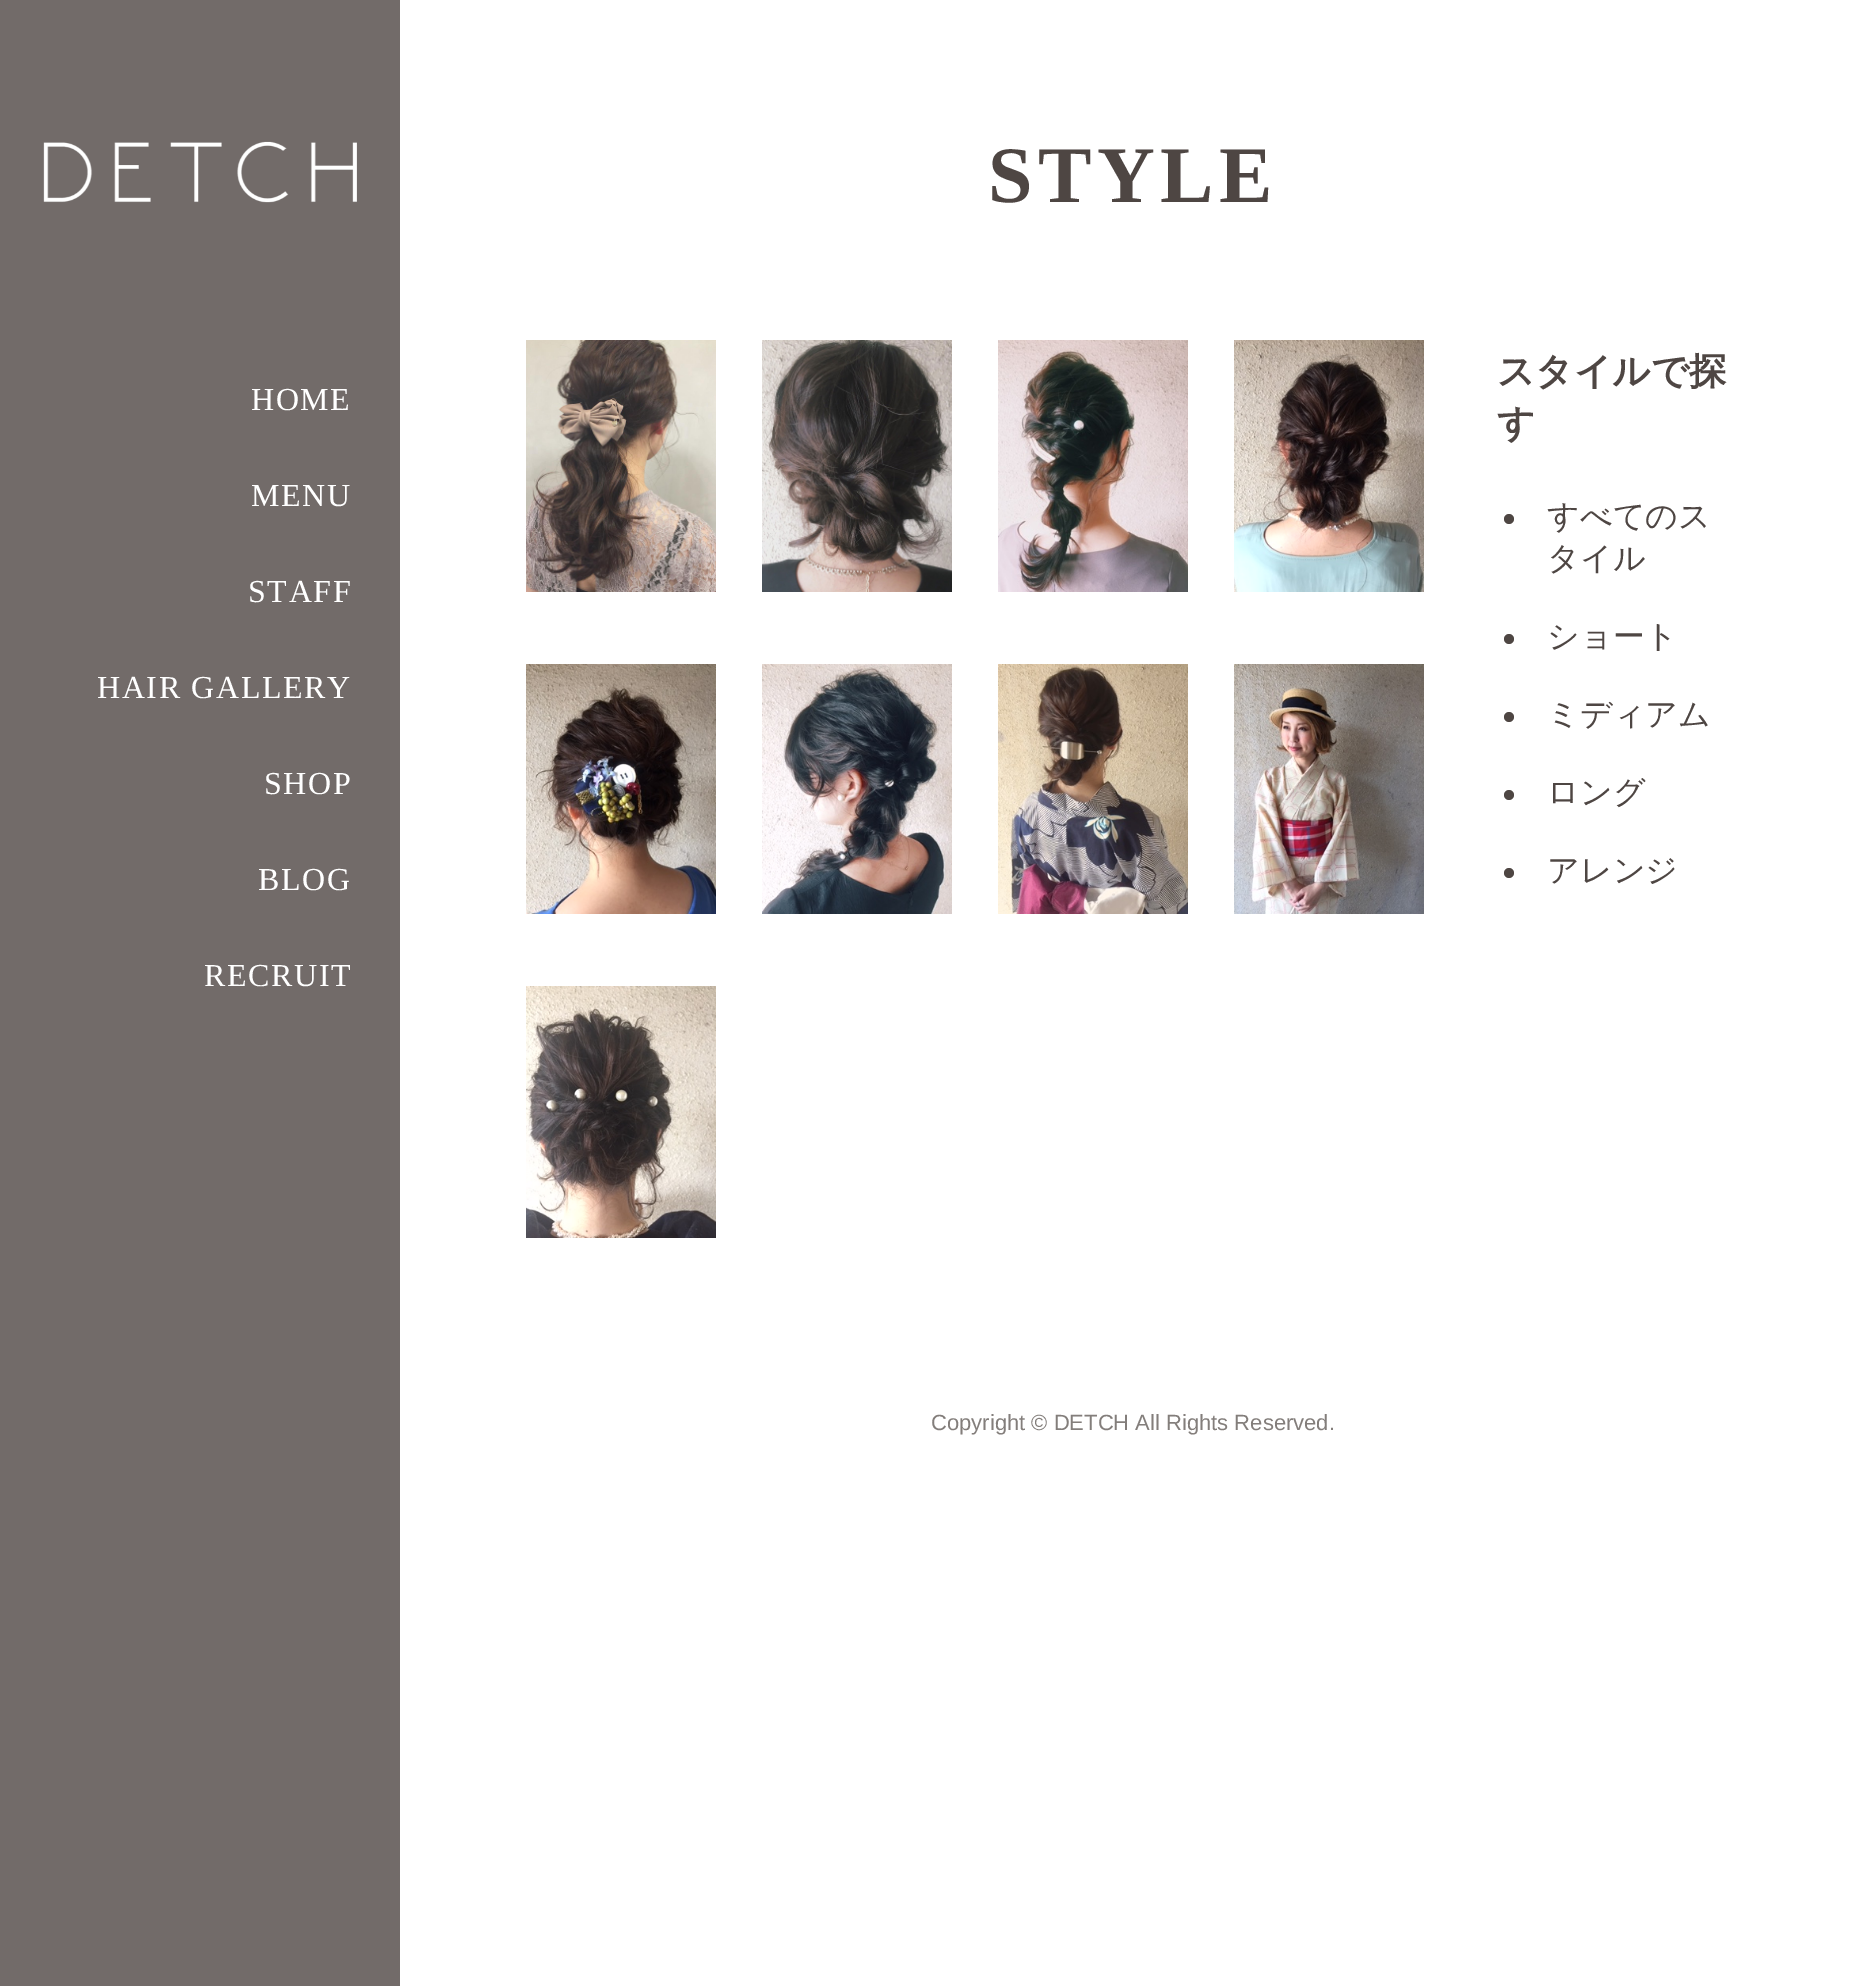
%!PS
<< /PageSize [1866 1986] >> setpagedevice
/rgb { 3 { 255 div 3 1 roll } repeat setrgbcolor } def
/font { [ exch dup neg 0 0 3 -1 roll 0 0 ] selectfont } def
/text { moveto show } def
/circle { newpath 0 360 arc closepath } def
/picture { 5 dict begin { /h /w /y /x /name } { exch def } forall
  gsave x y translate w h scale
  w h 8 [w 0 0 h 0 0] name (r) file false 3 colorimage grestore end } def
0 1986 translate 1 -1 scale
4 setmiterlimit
255 255 255 rgb
0 0 1866 1986 rectfill
114 107 105 rgb
0 0 400 1986 rectfill
(img_01.rgb) 43 141 314 62 picture
(img_02.rgb) 526 340 190 252 picture
(img_03.rgb) 762 340 190 252 picture
(img_04.rgb) 998 340 190 252 picture
(img_05.rgb) 1234 340 190 252 picture
(img_06.rgb) 526 664 190 250 picture
(img_07.rgb) 762 664 190 250 picture
(img_08.rgb) 998 664 190 250 picture
(img_09.rgb) 1234 664 190 250 picture
(img_10.rgb) 526 986 190 252 picture
78 70 67 rgb
1509 519 5 circle fill
1509 639 5 circle fill
1509 717 5 circle fill
1509 795 5 circle fill
1509 873 5 circle fill
/LiberationSerif-Regular 32 font
255 255 255 rgb
251 410 moveto 1.6 0 (HOME) ashow
251 506 moveto 1.6 0 (MENU) ashow
248 602 moveto 1.6 0 (STAFF) ashow
97 698 moveto 1.6 0 (HAIR GALLERY) ashow
264 794 moveto 1.6 0 (SHOP) ashow
258 890 moveto 1.6 0 (BLOG) ashow
204 986 moveto 1.6 0 (RECRUIT) ashow
/LiberationSerif-Bold 80 font
78 70 67 rgb
988 202 moveto 5.5 0 (STYLE) ashow
/WenQuanYiZenHei-Bold 37.5 font
(スタイルで探) 1497 384 text
(す) 1497 436 text
/WenQuanYiZenHei-Medium 32 font
(すべてのス) 1547 527 text
(タイル) 1547 569 text
(ショート) 1547 647 text
(ミディアム) 1547 725 text
(ロング) 1547 803 text
(アレンジ) 1547 881 text
/LiberationSans-Regular 22 font
131 126 123 rgb
(Copyright © DETCH All Rights Reserved.) 931 1430 text
showpage
